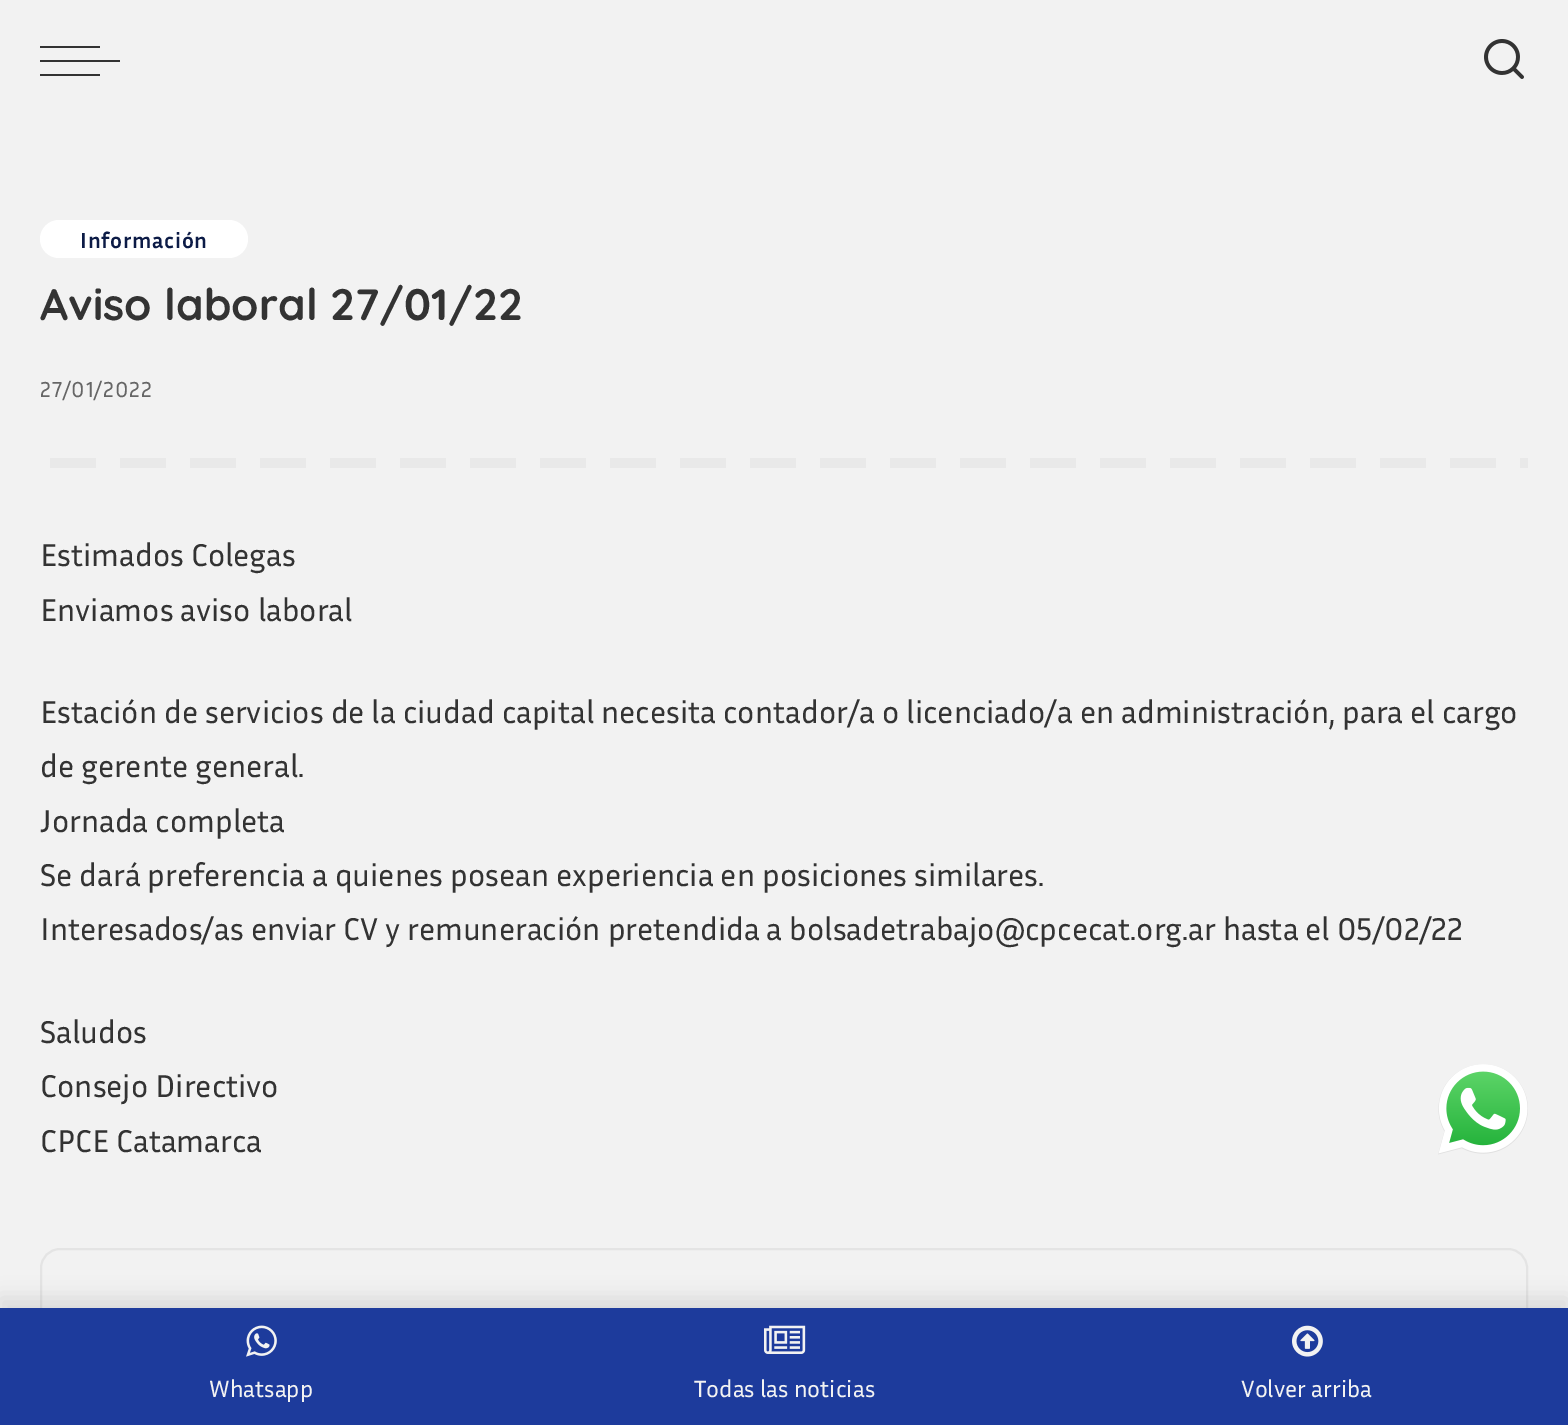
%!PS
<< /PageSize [1568 1425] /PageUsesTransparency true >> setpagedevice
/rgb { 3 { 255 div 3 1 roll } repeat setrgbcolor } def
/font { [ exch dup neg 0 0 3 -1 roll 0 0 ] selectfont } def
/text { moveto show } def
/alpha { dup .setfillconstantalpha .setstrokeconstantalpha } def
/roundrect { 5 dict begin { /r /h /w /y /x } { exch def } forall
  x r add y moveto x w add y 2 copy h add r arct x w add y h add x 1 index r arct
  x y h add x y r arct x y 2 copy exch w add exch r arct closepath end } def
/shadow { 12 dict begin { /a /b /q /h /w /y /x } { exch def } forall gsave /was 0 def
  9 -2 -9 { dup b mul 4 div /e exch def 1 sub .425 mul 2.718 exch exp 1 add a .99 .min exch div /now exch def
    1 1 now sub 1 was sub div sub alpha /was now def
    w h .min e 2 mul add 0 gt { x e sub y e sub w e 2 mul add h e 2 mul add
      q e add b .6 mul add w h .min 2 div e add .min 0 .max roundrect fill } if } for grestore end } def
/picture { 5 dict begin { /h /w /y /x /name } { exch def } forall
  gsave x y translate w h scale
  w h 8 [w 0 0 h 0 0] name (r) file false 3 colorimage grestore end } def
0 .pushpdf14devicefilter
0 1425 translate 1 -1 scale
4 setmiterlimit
242 242 242 rgb
0 0 1568 1425 rectfill
51 51 51 rgb
40 60 80 2 rectfill
40 46 60 2 rectfill
40 74 60 2 rectfill
(img_01.rgb) 1484 39 40 40 picture
(img_02.rgb) 50 458 1478 10 picture
255 255 255 rgb
40 220 208 38 19 roundrect fill
228 228 228 rgb
2 setlinewidth
41 1249 1486 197 19 roundrect stroke
(img_03.rgb) 1438 1064 90 91 picture
0 0 0 rgb
0 1298 1568 118 0 10 0.1 shadow
29 59 156 rgb
0 1308 1568 117 rectfill
(img_04.rgb) 246 1325 31 32 picture
(img_05.rgb) 764 1325 42 29 picture
(img_06.rgb) 1292 1325 31 32 picture
/InriaSans-Bold 22 font
12 27 70 rgb
80 248 moveto 0.75 0 (Información) ashow
/Quicksand-Bold 44 font
51 51 51 rgb
(Aviso laboral 27/01/22) 40 320 text
/InriaSans-Regular 22 font
102 102 102 rgb
40 397 moveto 0.75 0 (27/01/2022) ashow
/InriaSans-Regular 32 font
51 51 51 rgb
(Estimados Colegas) 40 566 text
(Enviamos aviso laboral) 40 621 text
(Estación de servicios de la ciudad capital necesita contador/a o licenciado/a en administración, para el cargo) 40 723 text
(de gerente general.) 40 777 text
(Jornada completa) 40 832 text
(Se dará preferencia a quienes posean experiencia en posiciones similares.) 40 886 text
(Interesados/as enviar CV y remuneración pretendida a bolsadetrabajo@cpcecat.org.ar hasta el 05/02/22) 40 940 text
(Saludos) 40 1043 text
(Consejo Directivo) 40 1097 text
(CPCE Catamarca) 40 1152 text
/InriaSans-Regular 24 font
242 242 242 rgb
(Whatsapp) 209 1397 text
(Todas las noticias) 694 1397 text
(Volver arriba) 1241 1397 text
.poppdf14devicefilter showpage
